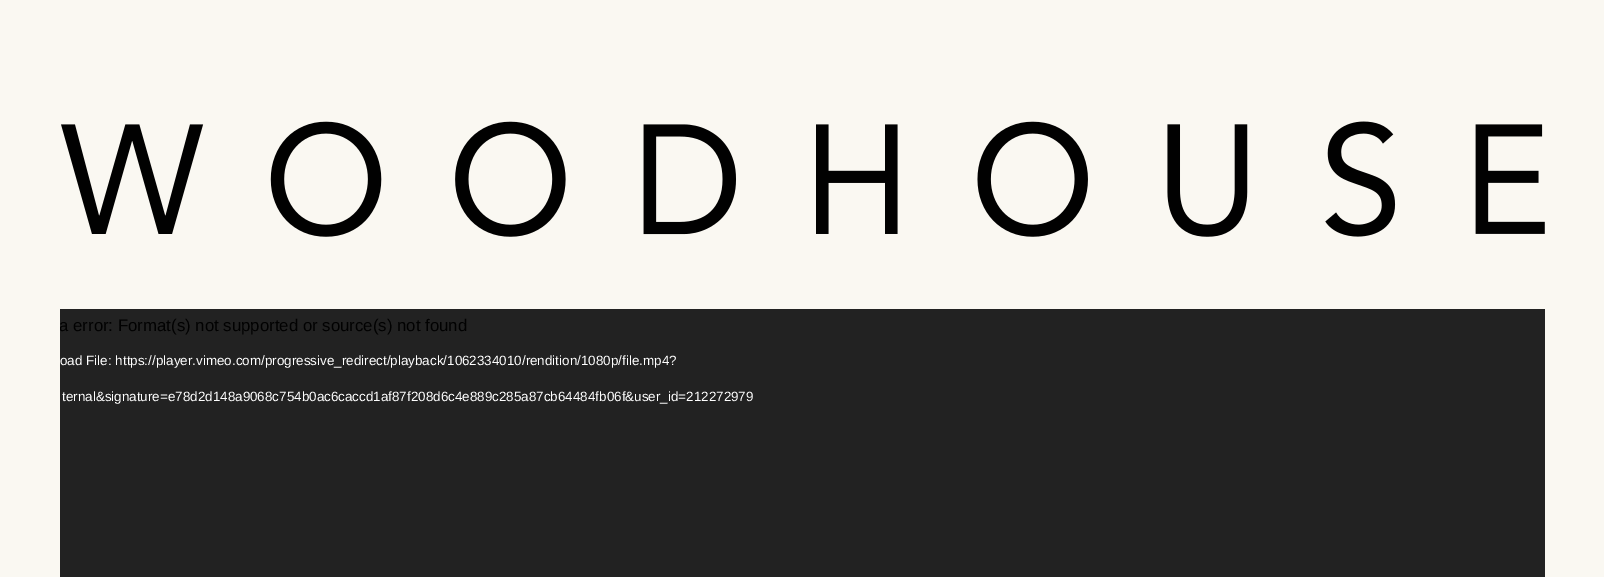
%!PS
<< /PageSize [1604 577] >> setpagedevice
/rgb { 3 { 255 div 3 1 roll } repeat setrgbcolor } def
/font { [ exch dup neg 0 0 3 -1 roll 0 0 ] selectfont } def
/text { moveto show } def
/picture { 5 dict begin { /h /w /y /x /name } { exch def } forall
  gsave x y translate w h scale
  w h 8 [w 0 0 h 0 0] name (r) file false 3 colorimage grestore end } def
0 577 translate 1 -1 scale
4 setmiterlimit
250 248 242 rgb
0 0 1604 577 rectfill
(img_01.rgb) 61 121 1484 116 picture
34 34 34 rgb
60 309 1485 268 rectfill
gsave
60 309 1485 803 rectclip
/LiberationSans-Regular 16.8 font
1 1 1 rgb
(a error: Format\(s\) not supported or source\(s\) not found) 59 331 text
grestore
/LiberationSans-Regular 13.45 font
255 255 255 rgb
(oad File: https://player.vimeo.com/progressive_redirect/playback/1062334010/rendition/1080p/file.mp4?) 60 365 text
(ternal&signature=e78d2d148a9068c754b0ac6caccd1af87f208d6c4e889c285a87cb64484fb06f&user_id=212272979) 62 401 text
showpage
